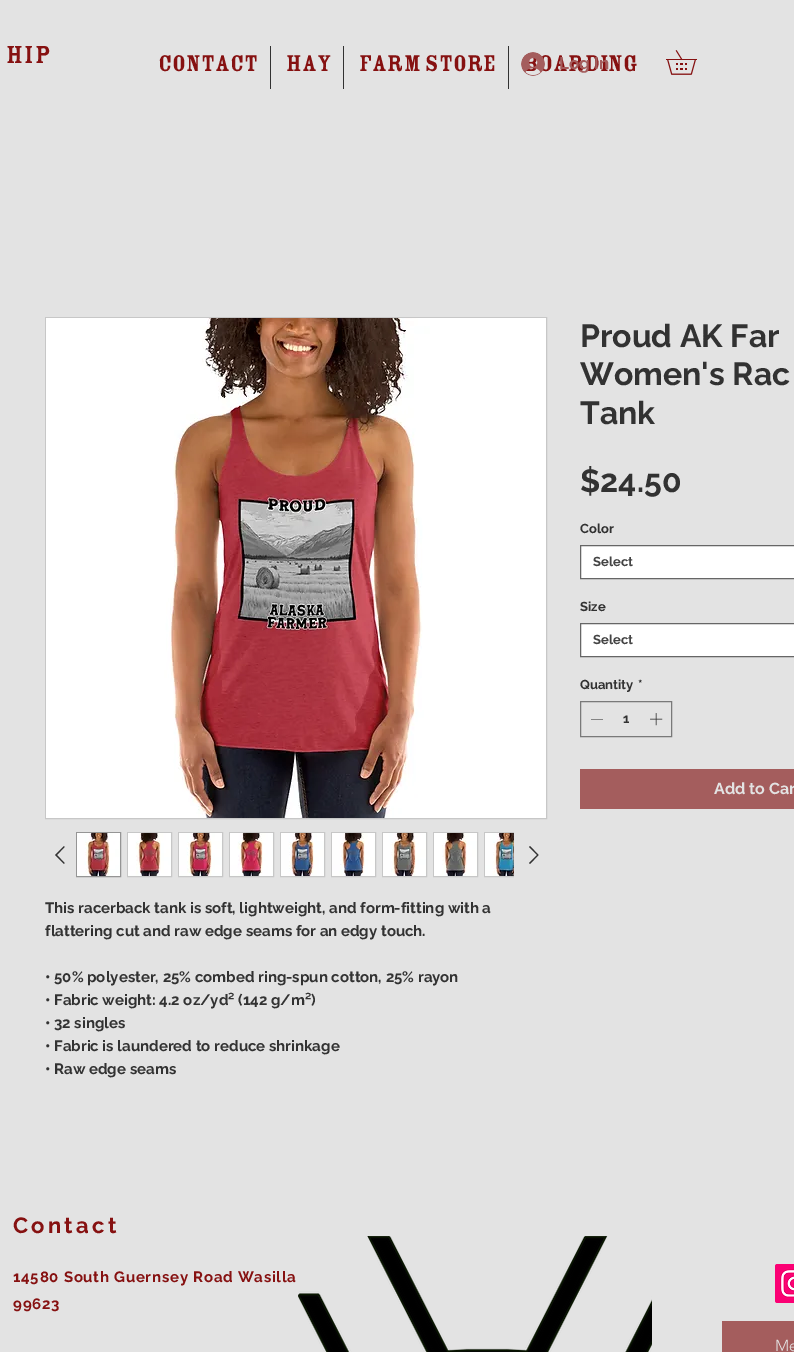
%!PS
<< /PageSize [794 1352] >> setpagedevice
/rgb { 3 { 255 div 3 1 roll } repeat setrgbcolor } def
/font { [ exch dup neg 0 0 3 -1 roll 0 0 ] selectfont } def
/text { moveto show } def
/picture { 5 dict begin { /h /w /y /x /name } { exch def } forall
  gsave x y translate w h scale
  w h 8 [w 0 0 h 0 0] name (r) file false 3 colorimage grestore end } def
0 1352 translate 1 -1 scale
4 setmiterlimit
227 227 227 rgb
0 0 794 1352 rectfill
50 50 50 rgb
270 46 1 43 rectfill
343 46 1 43 rectfill
508 46 1 43 rectfill
(img_02.rgb) 666 50 31 25 picture
255 255 255 rgb
580.5 545.5 moveto 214 0 rlineto 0 33 rlineto -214 0 rlineto closepath gsave fill grestore
102 102 102 rgb
stroke
255 255 255 rgb
580.5 623.5 moveto 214 0 rlineto 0 33 rlineto -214 0 rlineto closepath gsave fill grestore
102 102 102 rgb
stroke
121 121 121 rgb
580.5 701.5 91 35 rectstroke
50 50 50 rgb
603 719 moveto 0 0.5 rlineto -12 0 rlineto 0 -0.5 rlineto closepath eofill
(img_03.rgb) 650 713 13 13 picture
164 93 93 rgb
580 769 214 40 rectfill
199 199 199 rgb
45.5 317.5 501 501 rectstroke
(img_04.rgb) 46 318 500 500 picture
50 50 50 rgb
64 846 moveto 0.5 1 rlineto -7.5 8 rlineto 7.5 8 rlineto -0.5 1 rlineto -9 -9 rlineto closepath eofill
149 149 149 rgb
76.5 832.5 44 44 rectstroke
(img_05.rgb) 77 833 43 43 picture
199 199 199 rgb
127.5 832.5 44 44 rectstroke
(img_06.rgb) 128 833 43 43 picture
178.5 832.5 44 44 rectstroke
(img_07.rgb) 179 833 43 43 picture
229.5 832.5 44 44 rectstroke
(img_08.rgb) 230 833 43 43 picture
280.5 832.5 44 44 rectstroke
(img_09.rgb) 281 833 43 43 picture
331.5 832.5 44 44 rectstroke
(img_10.rgb) 332 833 43 43 picture
382.5 832.5 44 44 rectstroke
(img_11.rgb) 383 833 43 43 picture
433.5 832.5 44 44 rectstroke
(img_12.rgb) 434 833 43 43 picture
gsave
72 828 442 53 rectclip
484.5 832.5 44 44 rectstroke
grestore
(img_13.rgb) 485 833 29 43 picture
50 50 50 rgb
530 846 moveto 8.5 9 rlineto -8.5 9 rlineto -1 -1 rlineto 8 -8 rlineto -8 -8 rlineto closepath eofill
(img_14.rgb) 298 1236 354 116 picture
(img_15.rgb) 775 1264 19 39 picture
164 93 93 rgb
722 1321 72 31 rectfill
/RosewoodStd-Bold 27 font
134 17 17 rgb
6 63 moveto 1.5 0 (hip) ashow
/RosewoodStd-Bold 25 font
(Contact) 158 71 text
(Hay) 286 71 text
(Farm Store) 359 71 text
(oarding) 539 71 text
(img_01.rgb) 521 52 24 24 picture
/Raleway-Bold 17 font
164 93 93 rgb
(Log In) 559 69 text
/Raleway-Bold 32 font
50 50 50 rgb
(Proud AK Far) 580 347 text
(Women's Rac) 580 385 text
(Tank) 580 424 text
($24.50) 580 492 text
/Raleway-Bold 13 font
(Color) 580 533 text
68 68 68 rgb
(Select) 593 566 text
50 50 50 rgb
(Size) 580 611 text
68 68 68 rgb
(Select) 593 644 text
50 50 50 rgb
(Quantity) 580 689 text
(*) 638 689 text
(1) 623 723 text
/Raleway-Bold 16 font
227 227 227 rgb
(Add to Car) 714 794 text
/Raleway-Bold 15 font
50 50 50 rgb
(This racerback tank is soft, lightweight, and form-fitting with a) 45 913 text
(flattering cut and raw edge seams for an edgy touch.) 45 936 text
(• 50% polyester, 25% combed ring-spun cotton, 25% rayon) 45 982 text
(• Fabric weight: 4.2 oz/yd² \(142 g/m²\)) 45 1005 text
(• 32 singles) 45 1028 text
(• Fabric is laundered to reduce shrinkage) 45 1051 text
(• Raw edge seams) 45 1074 text
/Raleway-Bold 22 font
134 17 17 rgb
13 1233 moveto 3.25 0 (Contact) ashow
/Raleway-Bold 15 font
13 1282 moveto 0.75 0 (14580 South Guernsey Road Wasilla) ashow
13 1309 moveto 0.75 0 (99623) ashow
/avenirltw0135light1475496-Light 16 font
227 227 227 rgb
(Me) 775 1351 text
showpage
